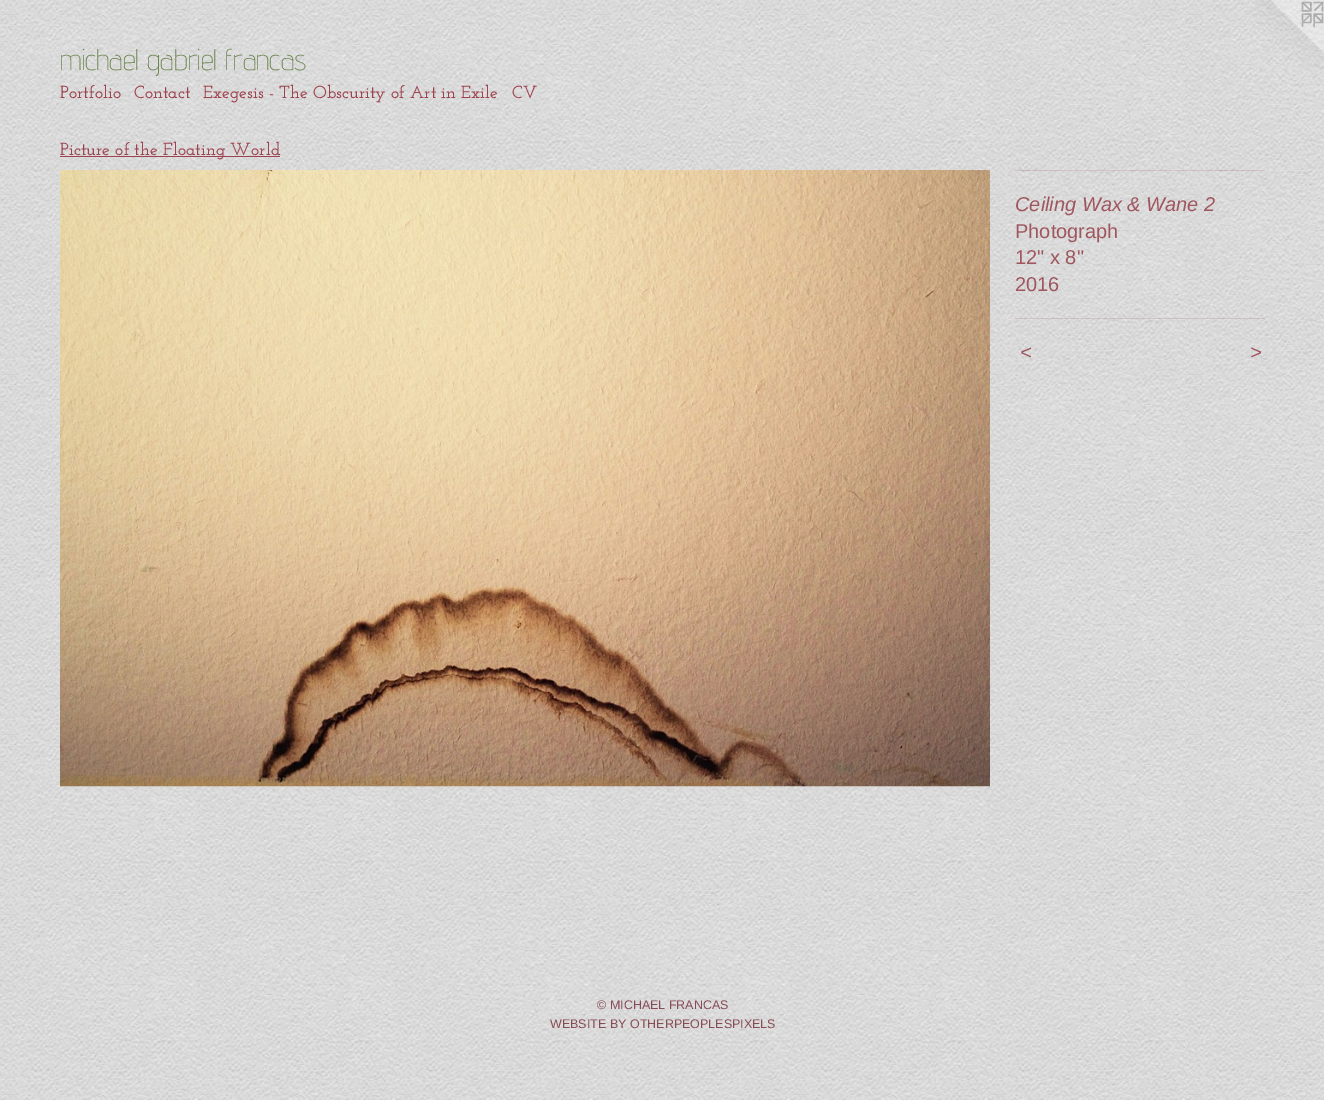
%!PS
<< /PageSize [1324 1100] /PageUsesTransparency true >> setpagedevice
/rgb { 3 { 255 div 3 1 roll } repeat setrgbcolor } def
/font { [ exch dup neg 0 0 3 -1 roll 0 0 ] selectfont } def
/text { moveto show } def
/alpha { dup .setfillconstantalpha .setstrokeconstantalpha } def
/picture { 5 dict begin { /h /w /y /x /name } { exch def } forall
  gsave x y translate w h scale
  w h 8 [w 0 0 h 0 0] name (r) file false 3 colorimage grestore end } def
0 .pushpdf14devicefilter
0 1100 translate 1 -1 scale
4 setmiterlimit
255 255 255 rgb
0 0 1324 1100 rectfill
(img_01.rgb) 0 0 1324 1100 picture
(img_02.rgb) 1255 0 69 69 picture
157 67 79 rgb
60 156 220 1 rectfill
(img_03.rgb) 60 170 930 617 picture
0.2 alpha
159 86 95 rgb
1015 170 250 1 rectfill
1015 318 250 1 rectfill
/AdventPro-ExtraLight 30 font
1 alpha
107 133 81 rgb
(michael gabriel francas) 60 70 text
/JosefinSlab-Thin 17.5 font
157 67 79 rgb
(Portfolio) 60 98 text
(Contact) 134 98 text
(Exegesis - The Obscurity of Art in Exile) 203 98 text
(CV) 512 98 text
(Picture of the Floating World) 60 155 text
/LiberationSans-Italic 20 font
159 86 95 rgb
(Ceiling Wax & Wane 2) 1015 211 text
/LiberationSans-Regular 20 font
(Photograph) 1015 238 text
(12" x 8") 1015 264 text
(2016) 1015 291 text
/LiberationSans-Italic 20 font
1020 359 moveto 1 0 (<) ashow
1250 359 moveto 1 0 (>) ashow
/LiberationSans-Regular 12.5 font
134 75 84 rgb
(© MICHAEL FRANCAS) 597 1009 text
(WEBSITE BY OTHERPEOPLESPIXELS) 550 1028 text
.poppdf14devicefilter showpage
